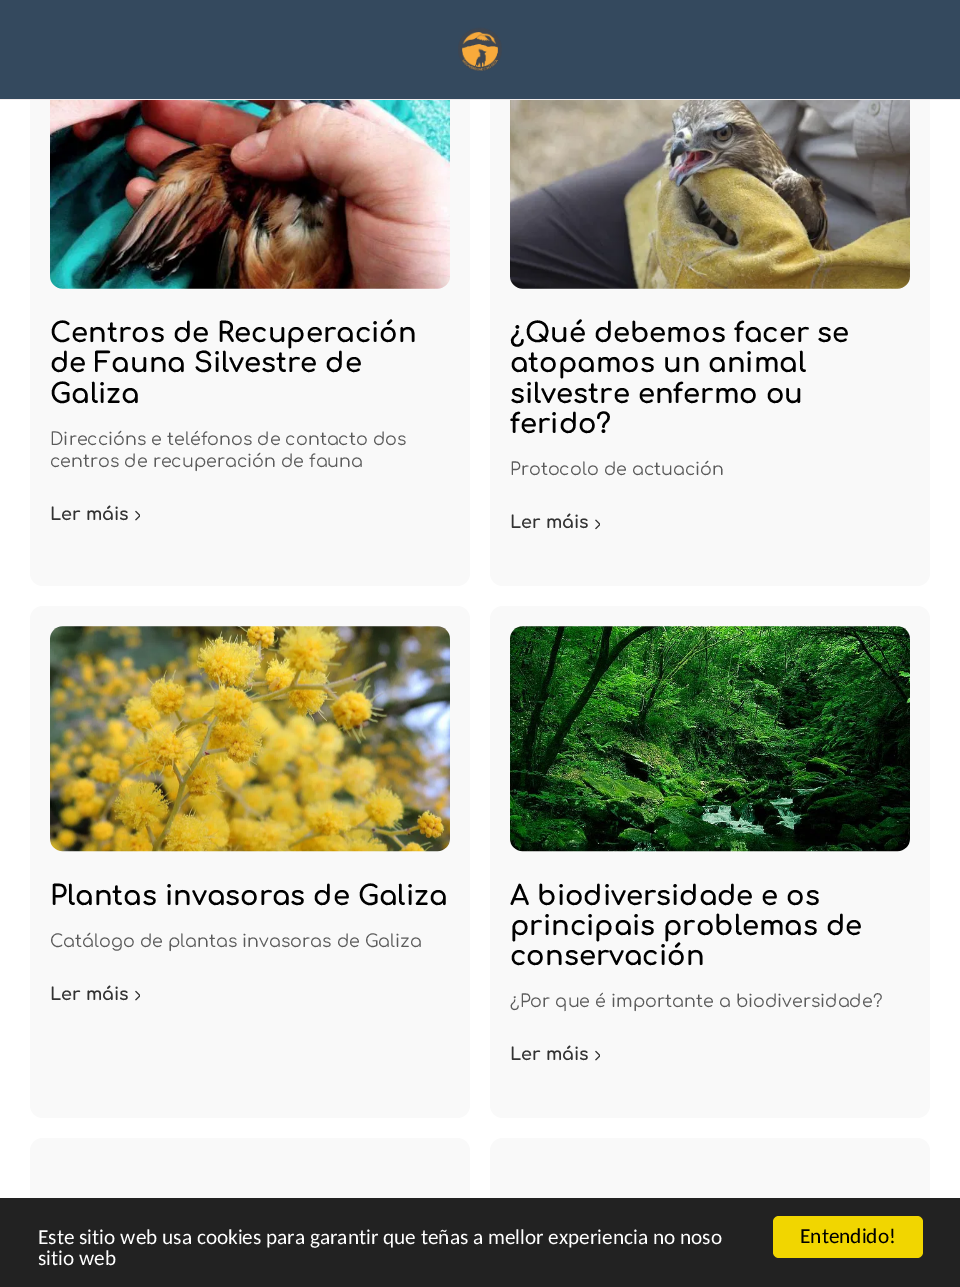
%!PS
<< /PageSize [960 1287] >> setpagedevice
/rgb { 3 { 255 div 3 1 roll } repeat setrgbcolor } def
/font { [ exch dup neg 0 0 3 -1 roll 0 0 ] selectfont } def
/text { moveto show } def
/roundrect { 5 dict begin { /r /h /w /y /x } { exch def } forall
  x r add y moveto x w add y 2 copy h add r arct x w add y h add x 1 index r arct
  x y h add x y r arct x y 2 copy exch w add exch r arct closepath end } def
/picture { 5 dict begin { /h /w /y /x /name } { exch def } forall
  gsave x y translate w h scale
  w h 8 [w 0 0 h 0 0] name (r) file false 3 colorimage grestore end } def
0 1287 translate 1 -1 scale
4 setmiterlimit
255 255 255 rgb
0 0 960 1287 rectfill
249 249 249 rgb
30 44 440 542 13 roundrect fill
490 44 440 542 13 roundrect fill
52 73 94 rgb
0 0 960 99 rectfill
243 238 238 rgb
0 99 960 1 rectfill
(img_01.rgb) 458 27 44 44 picture
(img_02.rgb) 50 100 400 189 picture
(img_03.rgb) 135 510 5 11 picture
(img_04.rgb) 510 100 400 189 picture
(img_05.rgb) 595 519 5 11 picture
249 249 249 rgb
30 606 440 512 13 roundrect fill
(img_06.rgb) 50 626 400 226 picture
(img_03.rgb) 135 990 5 11 picture
490 606 440 512 13 roundrect fill
(img_07.rgb) 510 626 400 226 picture
(img_03.rgb) 595 1050 5 11 picture
30 1138 440 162 13 roundrect fill
490 1138 440 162 13 roundrect fill
34 34 34 rgb
0 1198 960 89 rectfill
241 214 0 rgb
773 1216 150 42 6 roundrect fill
/Comfortaa-Bold 27.4 font
0 0 0 rgb
(Centros de Recuperación) 50 342 text
(de Fauna Silvestre de) 50 372 text
(Galiza) 50 403 text
/Comfortaa-Regular 17.5 font
91 91 91 rgb
(Direccións e teléfonos de contacto dos) 50 445 text
(centros de recuperación de fauna) 50 467 text
/Comfortaa-Bold 17.5 font
50 50 50 rgb
(Ler máis) 50 520 text
/Comfortaa-Bold 27.4 font
0 0 0 rgb
(¿Qué debemos facer se) 510 342 text
(atopamos un animal) 510 372 text
(silvestre enfermo ou) 510 403 text
(ferido?) 510 433 text
/Comfortaa-Regular 17.5 font
91 91 91 rgb
(Protocolo de actuación) 510 475 text
/Comfortaa-Bold 17.5 font
50 50 50 rgb
(Ler máis) 510 528 text
/Comfortaa-Bold 27.4 font
0 0 0 rgb
(Plantas invasoras de Galiza) 50 905 text
/Comfortaa-Regular 17.5 font
91 91 91 rgb
(Catálogo de plantas invasoras de Galiza) 50 947 text
/Comfortaa-Bold 17.5 font
50 50 50 rgb
(Ler máis) 50 1000 text
/Comfortaa-Bold 27.4 font
0 0 0 rgb
(A biodiversidade e os) 510 905 text
(principais problemas de) 510 935 text
(conservación) 510 965 text
/Comfortaa-Regular 17.5 font
91 91 91 rgb
(¿Por que é importante a biodiversidade?) 510 1007 text
/Comfortaa-Bold 17.5 font
50 50 50 rgb
(Ler máis) 510 1060 text
/Carlito-Regular 21.25 font
255 255 255 rgb
(Este sitio web usa cookies para garantir que teñas a mellor experiencia no noso) 38 1244 text
(sitio web) 38 1265 text
0 0 0 rgb
(Entendido!) 800 1243 text
showpage
